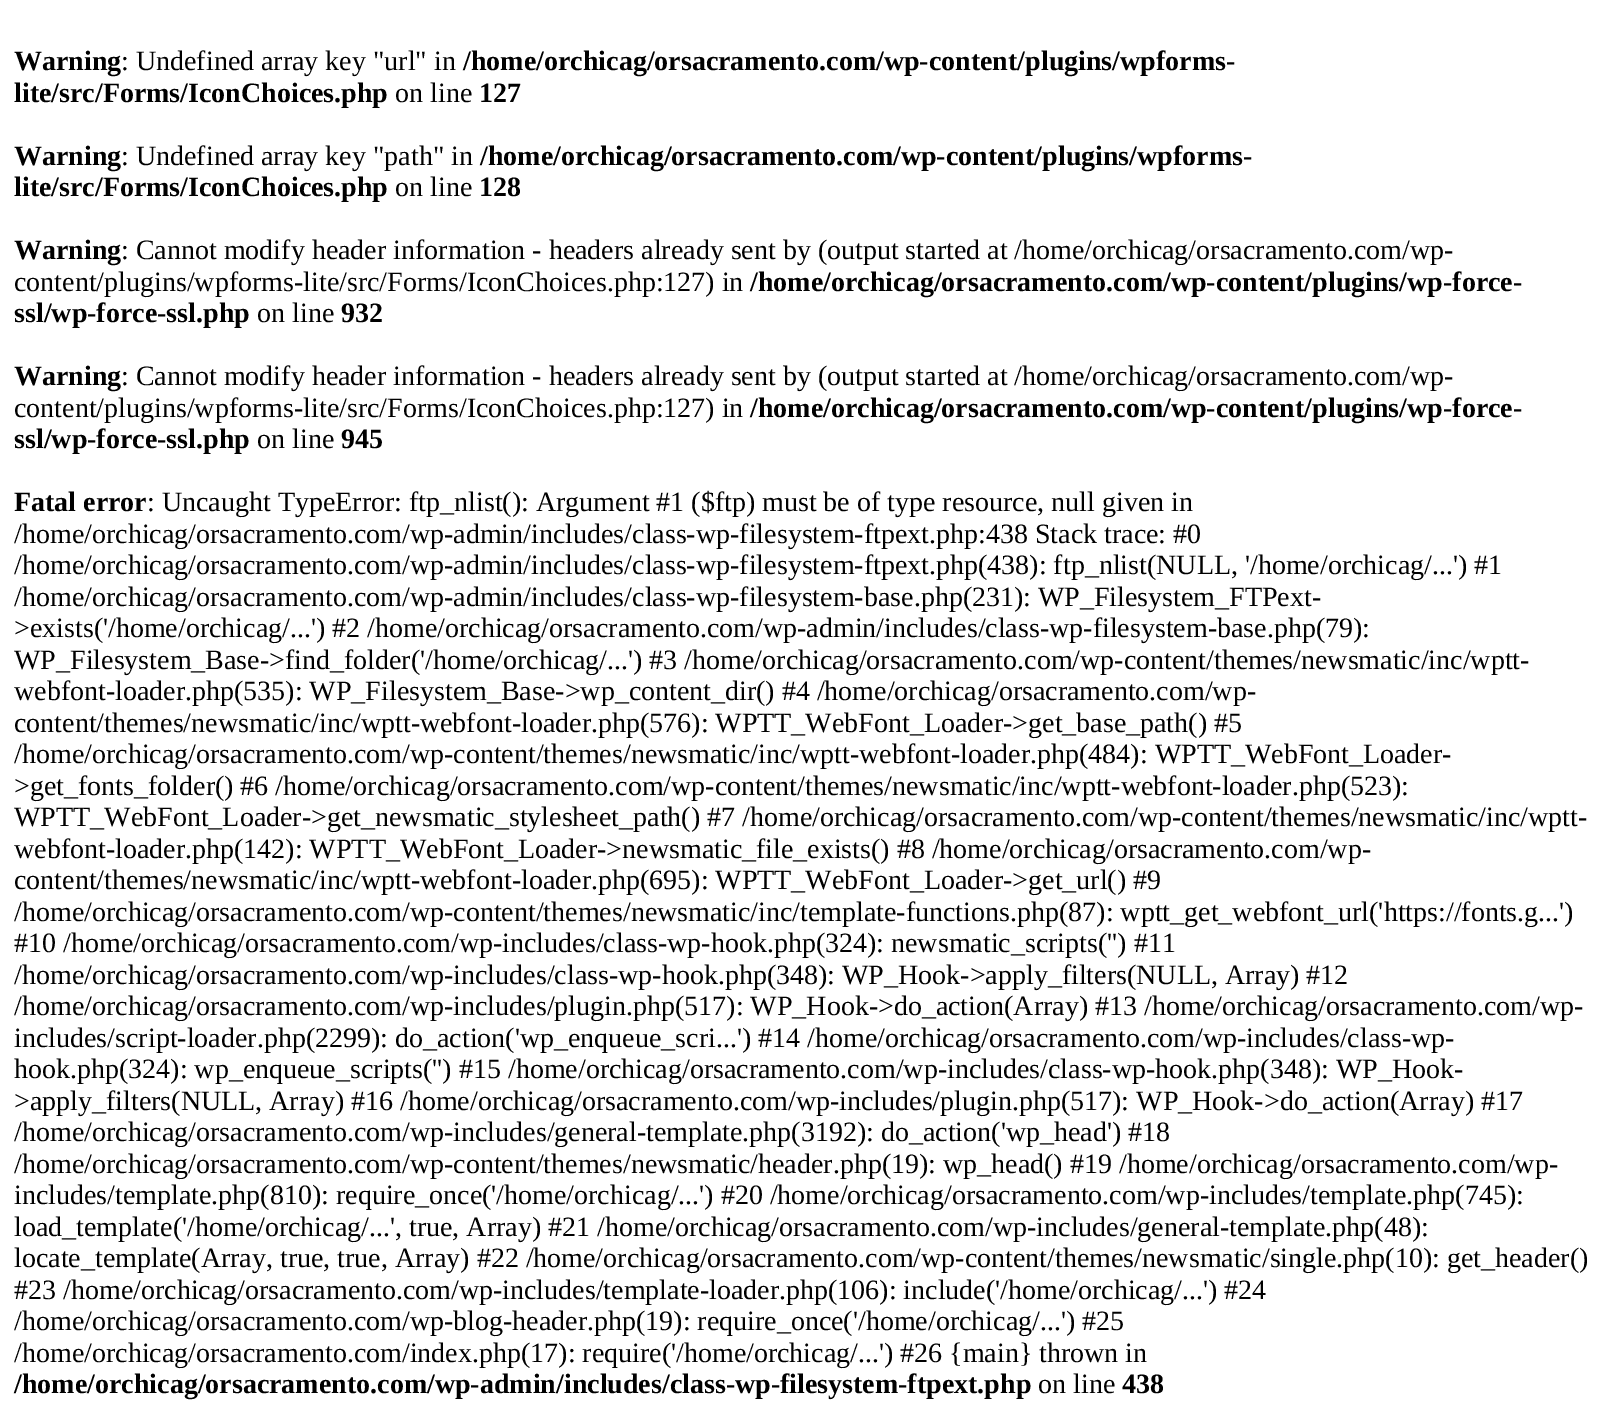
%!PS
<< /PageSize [1609 1422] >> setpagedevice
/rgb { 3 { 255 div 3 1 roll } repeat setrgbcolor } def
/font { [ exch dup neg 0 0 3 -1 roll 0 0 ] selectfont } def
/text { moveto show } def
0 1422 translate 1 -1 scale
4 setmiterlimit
255 255 255 rgb
0 0 1609 1422 rectfill
/LiberationSerif-Bold 28 font
0 0 0 rgb
(Warning) 14 70 text
/LiberationSerif-Regular 28 font
(: Undefined array key "url" in) 121 70 text
/LiberationSerif-Bold 28 font
(/home/orchicag/orsacramento.com/wp-content/plugins/wpforms-) 463 70 text
(lite/src/Forms/IconChoices.php) 14 102 text
/LiberationSerif-Regular 28 font
(on line) 395 102 text
/LiberationSerif-Bold 28 font
(127) 479 102 text
(Warning) 14 165 text
/LiberationSerif-Regular 28 font
(: Undefined array key "path" in) 121 165 text
/LiberationSerif-Bold 28 font
(/home/orchicag/orsacramento.com/wp-content/plugins/wpforms-) 480 165 text
(lite/src/Forms/IconChoices.php) 14 196 text
/LiberationSerif-Regular 28 font
(on line) 395 196 text
/LiberationSerif-Bold 28 font
(128) 479 196 text
(Warning) 14 259 text
/LiberationSerif-Regular 28 font
(: Cannot modify header information - headers already sent by \(output started at /home/orchicag/orsacramento.com/wp-) 121 259 text
(content/plugins/wpforms-lite/src/Forms/IconChoices.php:127\) in) 14 291 text
/LiberationSerif-Bold 28 font
(/home/orchicag/orsacramento.com/wp-content/plugins/wp-force-) 750 291 text
(ssl/wp-force-ssl.php) 14 322 text
/LiberationSerif-Regular 28 font
(on line) 257 322 text
/LiberationSerif-Bold 28 font
(932) 341 322 text
(Warning) 14 385 text
/LiberationSerif-Regular 28 font
(: Cannot modify header information - headers already sent by \(output started at /home/orchicag/orsacramento.com/wp-) 121 385 text
(content/plugins/wpforms-lite/src/Forms/IconChoices.php:127\) in) 14 417 text
/LiberationSerif-Bold 28 font
(/home/orchicag/orsacramento.com/wp-content/plugins/wp-force-) 750 417 text
(ssl/wp-force-ssl.php) 14 448 text
/LiberationSerif-Regular 28 font
(on line) 257 448 text
/LiberationSerif-Bold 28 font
(945) 341 448 text
(Fatal error) 14 511 text
/LiberationSerif-Regular 28 font
(: Uncaught TypeError: ftp_nlist\(\): Argument #1 \($ftp\) must be of type resource, null given in) 147 511 text
(/home/orchicag/orsacramento.com/wp-admin/includes/class-wp-filesystem-ftpext.php:438 Stack trace: #0) 14 543 text
(/home/orchicag/orsacramento.com/wp-admin/includes/class-wp-filesystem-ftpext.php\(438\): ftp_nlist\(NULL, '/home/orchicag/...'\) #1) 14 574 text
(/home/orchicag/orsacramento.com/wp-admin/includes/class-wp-filesystem-base.php\(231\): WP_Filesystem_FTPext-) 14 606 text
(>exists\('/home/orchicag/...'\) #2 /home/orchicag/orsacramento.com/wp-admin/includes/class-wp-filesystem-base.php\(79\):) 14 637 text
(WP_Filesystem_Base->find_folder\('/home/orchicag/...'\) #3 /home/orchicag/orsacramento.com/wp-content/themes/newsmatic/inc/wptt-) 14 669 text
(webfont-loader.php\(535\): WP_Filesystem_Base->wp_content_dir\(\) #4 /home/orchicag/orsacramento.com/wp-) 14 700 text
(content/themes/newsmatic/inc/wptt-webfont-loader.php\(576\): WPTT_WebFont_Loader->get_base_path\(\) #5) 14 732 text
(/home/orchicag/orsacramento.com/wp-content/themes/newsmatic/inc/wptt-webfont-loader.php\(484\): WPTT_WebFont_Loader-) 14 763 text
(>get_fonts_folder\(\) #6 /home/orchicag/orsacramento.com/wp-content/themes/newsmatic/inc/wptt-webfont-loader.php\(523\):) 14 795 text
(WPTT_WebFont_Loader->get_newsmatic_stylesheet_path\(\) #7 /home/orchicag/orsacramento.com/wp-content/themes/newsmatic/inc/wptt-) 14 826 text
(webfont-loader.php\(142\): WPTT_WebFont_Loader->newsmatic_file_exists\(\) #8 /home/orchicag/orsacramento.com/wp-) 14 858 text
(content/themes/newsmatic/inc/wptt-webfont-loader.php\(695\): WPTT_WebFont_Loader->get_url\(\) #9) 14 889 text
(/home/orchicag/orsacramento.com/wp-content/themes/newsmatic/inc/template-functions.php\(87\): wptt_get_webfont_url\('https://fonts.g...'\)) 14 921 text
(#10 /home/orchicag/orsacramento.com/wp-includes/class-wp-hook.php\(324\): newsmatic_scripts\(''\) #11) 14 952 text
(/home/orchicag/orsacramento.com/wp-includes/class-wp-hook.php\(348\): WP_Hook->apply_filters\(NULL, Array\) #12) 14 984 text
(/home/orchicag/orsacramento.com/wp-includes/plugin.php\(517\): WP_Hook->do_action\(Array\) #13 /home/orchicag/orsacramento.com/wp-) 14 1015 text
(includes/script-loader.php\(2299\): do_action\('wp_enqueue_scri...'\) #14 /home/orchicag/orsacramento.com/wp-includes/class-wp-) 14 1047 text
(hook.php\(324\): wp_enqueue_scripts\(''\) #15 /home/orchicag/orsacramento.com/wp-includes/class-wp-hook.php\(348\): WP_Hook-) 14 1078 text
(>apply_filters\(NULL, Array\) #16 /home/orchicag/orsacramento.com/wp-includes/plugin.php\(517\): WP_Hook->do_action\(Array\) #17) 14 1110 text
(/home/orchicag/orsacramento.com/wp-includes/general-template.php\(3192\): do_action\('wp_head'\) #18) 14 1141 text
(/home/orchicag/orsacramento.com/wp-content/themes/newsmatic/header.php\(19\): wp_head\(\) #19 /home/orchicag/orsacramento.com/wp-) 14 1173 text
(includes/template.php\(810\): require_once\('/home/orchicag/...'\) #20 /home/orchicag/orsacramento.com/wp-includes/template.php\(745\):) 14 1204 text
(load_template\('/home/orchicag/...', true, Array\) #21 /home/orchicag/orsacramento.com/wp-includes/general-template.php\(48\):) 14 1236 text
(locate_template\(Array, true, true, Array\) #22 /home/orchicag/orsacramento.com/wp-content/themes/newsmatic/single.php\(10\): get_header\(\)) 14 1267 text
(#23 /home/orchicag/orsacramento.com/wp-includes/template-loader.php\(106\): include\('/home/orchicag/...'\) #24) 14 1299 text
(/home/orchicag/orsacramento.com/wp-blog-header.php\(19\): require_once\('/home/orchicag/...'\) #25) 14 1330 text
(/home/orchicag/orsacramento.com/index.php\(17\): require\('/home/orchicag/...'\) #26 {main} thrown in) 14 1362 text
/LiberationSerif-Bold 28 font
(/home/orchicag/orsacramento.com/wp-admin/includes/class-wp-filesystem-ftpext.php) 14 1393 text
/LiberationSerif-Regular 28 font
(on line) 1038 1393 text
/LiberationSerif-Bold 28 font
(438) 1122 1393 text
showpage
